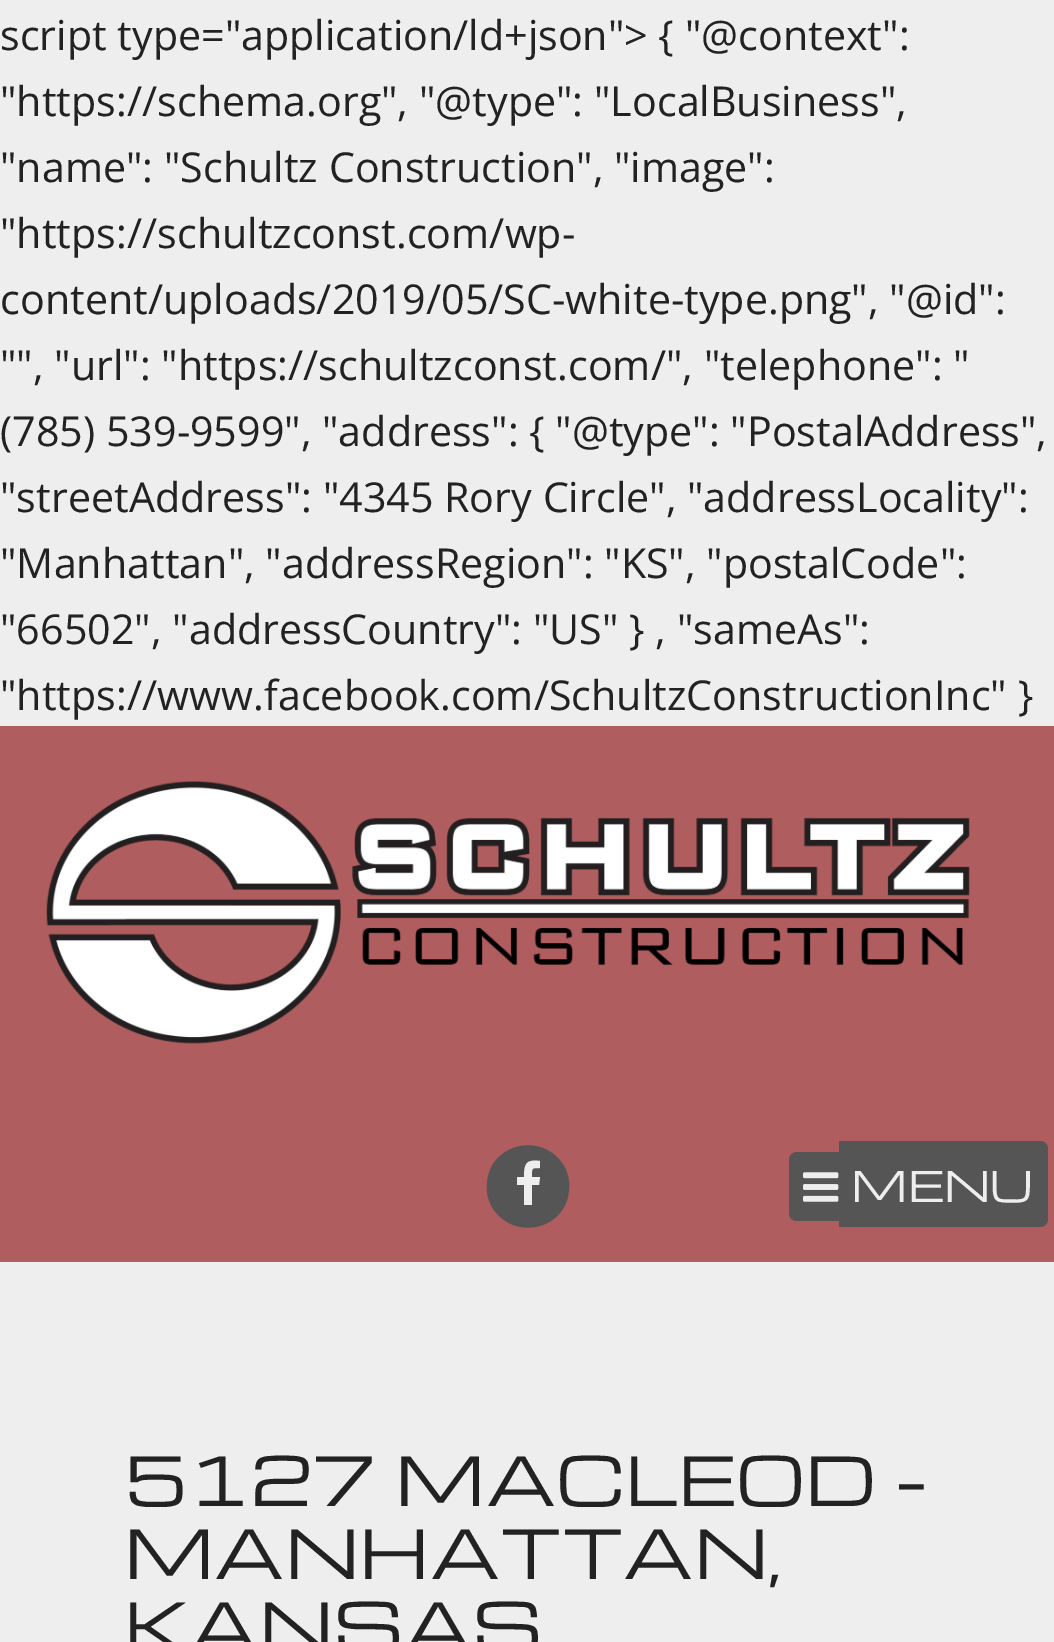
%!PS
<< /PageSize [1054 1642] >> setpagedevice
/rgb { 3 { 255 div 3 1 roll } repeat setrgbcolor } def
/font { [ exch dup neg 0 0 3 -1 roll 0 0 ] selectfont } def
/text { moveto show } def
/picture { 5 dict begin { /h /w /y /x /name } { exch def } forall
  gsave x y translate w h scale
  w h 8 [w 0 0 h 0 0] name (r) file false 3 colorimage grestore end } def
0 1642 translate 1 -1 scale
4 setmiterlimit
238 238 238 rgb
0 0 1054 1642 rectfill
176 93 95 rgb
0 726 1054 536 rectfill
(img_01.rgb) 46 781 924 263 picture
85 85 85 rgb
564 1166 moveto 4 7 6 15 5 23 rcurveto -2 41 -56 53 -77 18 rcurveto -4 -7 -6 -15 -5 -23 rcurveto 2 -41 56 -53 77 -18 rcurveto closepath fill
238 238 238 rgb
540 1161 moveto 0 7 rlineto -9 0 -8 0 -8 9 rcurveto 8 0 rlineto -1 8 rlineto -7 0 rlineto 0 20 rlineto -8 0 rlineto 0 -20 rlineto -7 0 rlineto 0 -8 rlineto 7 0 rlineto 0 -13 2 -18 16 -16 rcurveto closepath fill
85 85 85 rgb
797 1152 moveto 42 0 rlineto 0 69 rlineto -42 0 rlineto -4.5 0 -8 -3.5 -8 -8 rcurveto 0 -53 rlineto 0 -4.5 3.5 -8 8 -8 rcurveto closepath fill
839 1141 moveto 201 0 rlineto 4.5 0 8 3.5 8 8 rcurveto 0 70 rlineto 0 4.5 -3.5 8 -8 8 rcurveto -201 0 rlineto closepath fill
(img_02.rgb) 803 1172 36 30 picture
/OpenSans-Regular 41.25 font
34 34 34 rgb
(script type="application/ld+json"> { "@context":) 0 50 text
("https://schema.org", "@type": "LocalBusiness",) 0 116 text
("name": "Schultz Construction", "image":) 0 182 text
("https://schultzconst.com/wp-) 0 248 text
(content/uploads/2019/05/SC-white-type.png", "@id":) 0 314 text
("", "url": "https://schultzconst.com/", "telephone": ") 0 380 text
(\(785\) 539-9599", "address": { "@type": "PostalAddress",) 0 446 text
("streetAddress": "4345 Rory Circle", "addressLocality":) 0 512 text
("Manhattan", "addressRegion": "KS", "postalCode":) 0 578 text
("66502", "addressCountry": "US" } , "sameAs":) 0 644 text
("https://www.facebook.com/SchultzConstructionInc" }) 0 710 text
/Michroma-Regular 41.25 font
238 238 238 rgb
(MENU) 851 1202 text
/Michroma-Regular 66 font
34 34 34 rgb
(5127 MACLEOD -) 124 1506 text
(MANHATTAN,) 124 1579 text
(KANSAS) 124 1652 text
showpage
